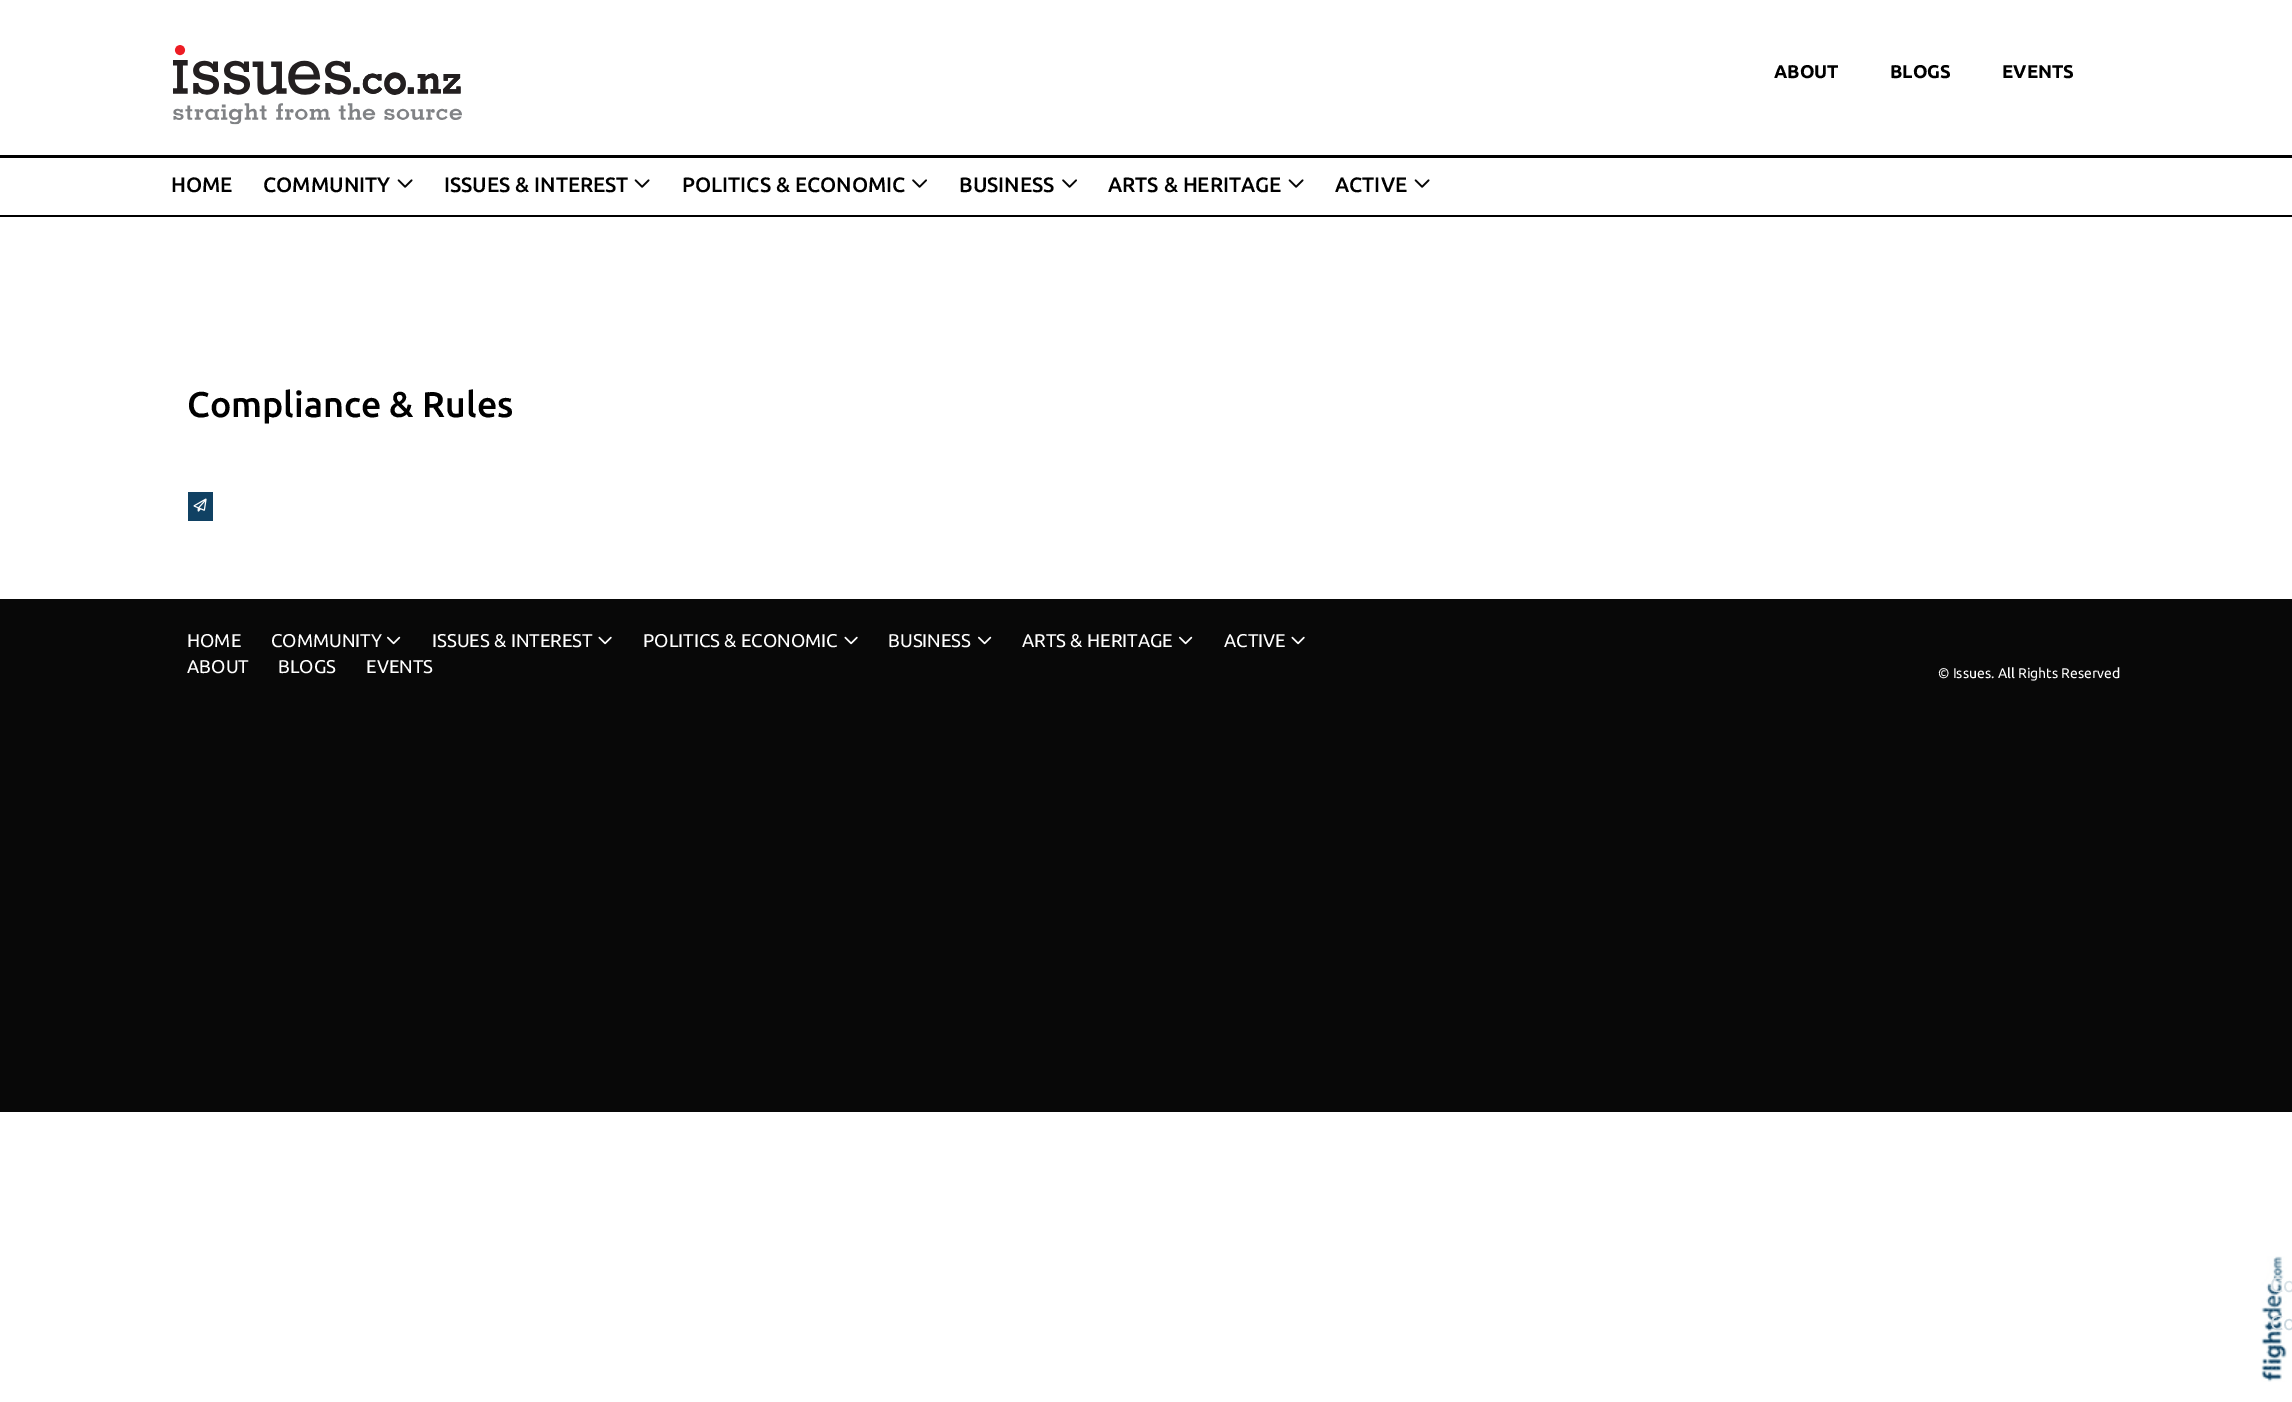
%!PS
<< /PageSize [2292 1402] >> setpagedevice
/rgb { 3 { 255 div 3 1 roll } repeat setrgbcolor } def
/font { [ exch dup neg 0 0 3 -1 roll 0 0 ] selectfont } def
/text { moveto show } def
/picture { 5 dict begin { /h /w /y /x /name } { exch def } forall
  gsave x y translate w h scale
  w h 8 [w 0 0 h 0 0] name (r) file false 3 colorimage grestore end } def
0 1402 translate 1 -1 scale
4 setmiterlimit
255 255 255 rgb
0 0 2292 1402 rectfill
(img_01.rgb) 173 45 289 80 picture
0 0 0 rgb
0 155 2292 3 rectfill
0 215 2292 2 rectfill
(img_02.rgb) 397 179 16 9 picture
(img_02.rgb) 634 179 16 9 picture
(img_03.rgb) 912 179 15 9 picture
(img_03.rgb) 1062 179 15 9 picture
(img_02.rgb) 1288 179 16 9 picture
(img_02.rgb) 1414 179 16 9 picture
16 65 99 rgb
188 492 25 29 rectfill
(img_04.rgb) 193 498 14 14 picture
8 8 8 rgb
0 599 2292 513 rectfill
(img_05.rgb) 387 636 14 9 picture
(img_06.rgb) 598 636 14 9 picture
(img_06.rgb) 844 636 14 9 picture
(img_05.rgb) 978 636 14 9 picture
(img_05.rgb) 1179 636 14 9 picture
(img_06.rgb) 1291 636 14 9 picture
(img_07.rgb) 2261 1256 26 126 picture
/Ubuntu-Bold 18.5 font
0 0 0 rgb
(ABOUT) 1774 78 text
(BLOGS) 1890 78 text
(EVENTS) 2002 78 text
/Ubuntu-Medium 20.75 font
(HOME) 171 192 text
(COMMUNITY) 263 192 text
(ISSUES & INTEREST) 444 192 text
(POLITICS & ECONOMIC) 682 192 text
(BUSINESS) 959 192 text
(ARTS & HERITAGE) 1108 192 text
(ACTIVE) 1335 192 text
/Ubuntu-Medium 35.75 font
(Compliance & Rules) 187 417 text
/Ubuntu-Regular 18.5 font
255 255 255 rgb
(HOME) 187 647 text
(COMMUNITY) 271 647 text
(ISSUES & INTEREST) 432 647 text
(POLITICS & ECONOMIC) 643 647 text
(BUSINESS) 888 647 text
(ARTS & HERITAGE) 1022 647 text
(ACTIVE) 1224 647 text
(ABOUT) 187 673 text
(BLOGS) 278 673 text
(EVENTS) 366 673 text
/Ubuntu-Regular 14 font
(© Issues. All Rights Reserved) 1938 678 text
/Ubuntu-Regular 21 font
216 225 230 rgb
(Co) 2270 1292 text
204 216 223 rgb
(Co) 2270 1330 text
showpage
